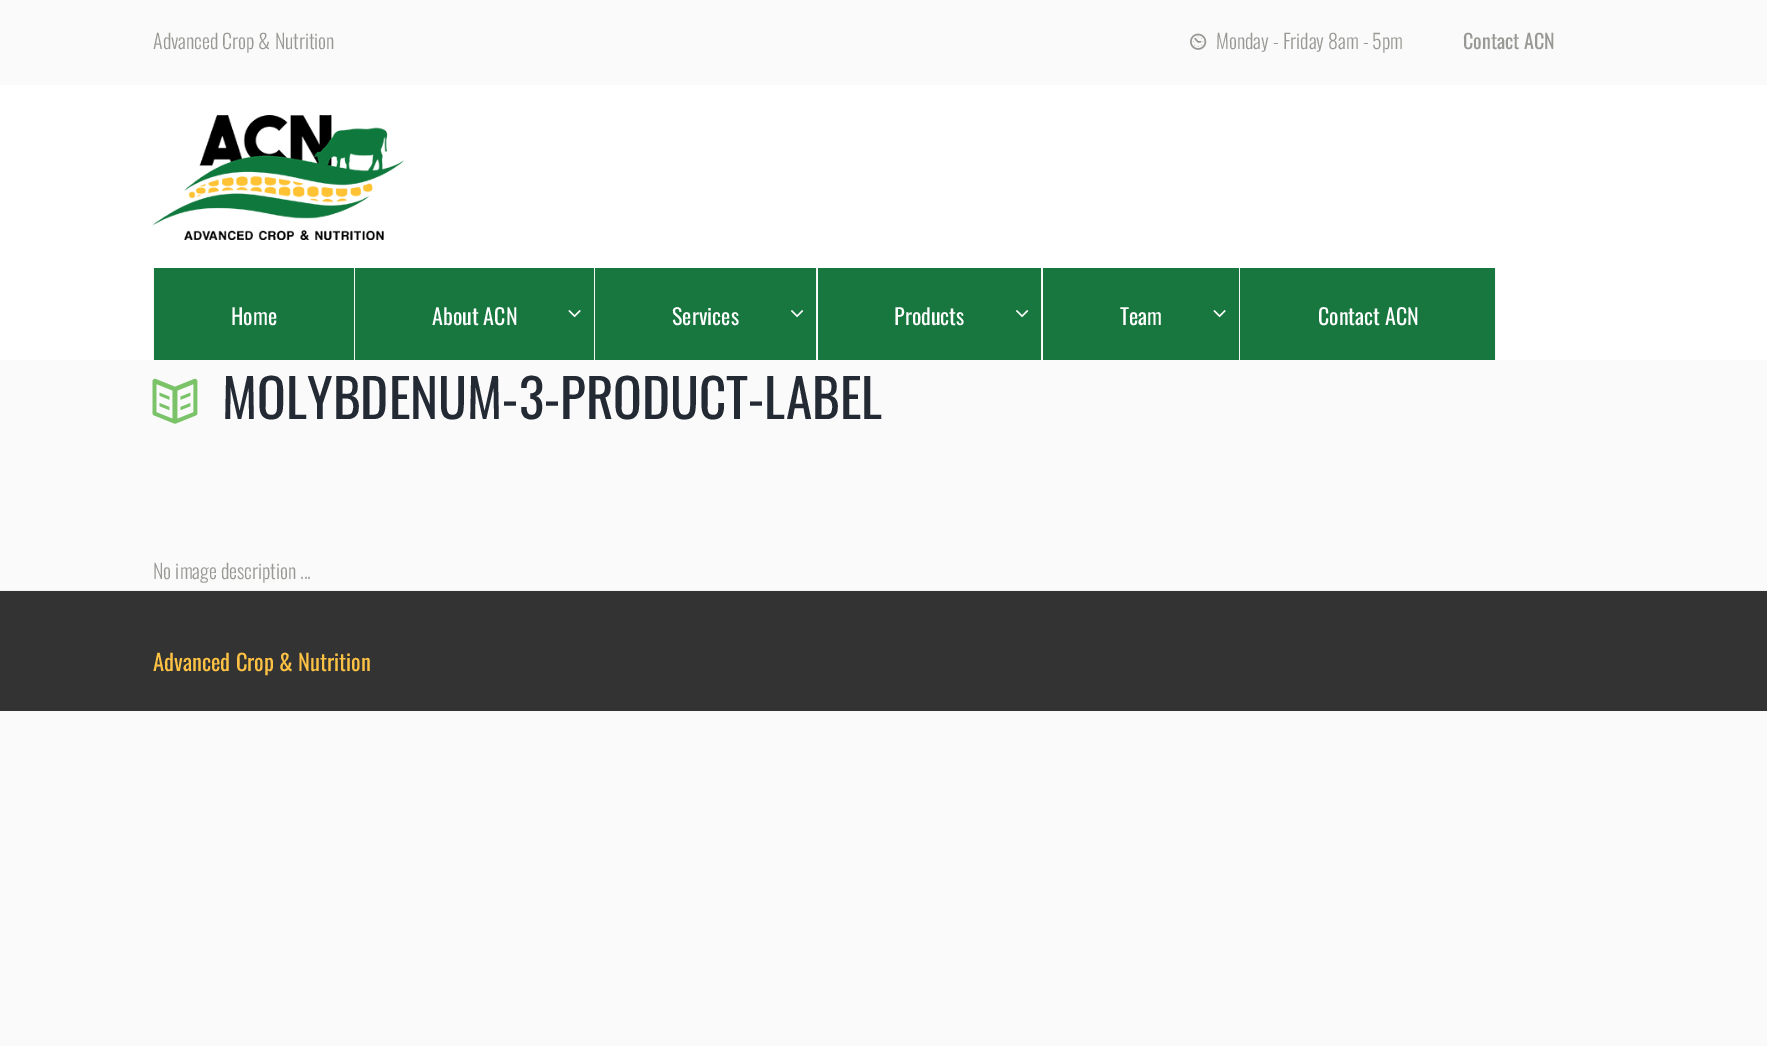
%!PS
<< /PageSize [1767 1046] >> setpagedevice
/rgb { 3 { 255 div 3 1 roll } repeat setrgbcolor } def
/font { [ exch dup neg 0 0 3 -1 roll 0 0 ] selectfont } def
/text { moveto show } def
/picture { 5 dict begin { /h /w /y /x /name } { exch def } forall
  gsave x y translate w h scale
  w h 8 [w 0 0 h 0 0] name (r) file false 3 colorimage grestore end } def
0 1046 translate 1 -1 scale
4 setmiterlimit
250 250 250 rgb
0 0 1767 1046 rectfill
(img_01.rgb) 1190 33 17 17 picture
255 255 255 rgb
0 85 1767 275 rectfill
(img_02.rgb) 152 115 252 125 picture
245 245 245 rgb
354 268 1 92 rectfill
153 268 1 92 rectfill
24 119 62 rgb
154 268 200 92 rectfill
245 245 245 rgb
594 268 1 92 rectfill
24 119 62 rgb
355 268 239 92 rectfill
(img_03.rgb) 568 310 13 8 picture
245 245 245 rgb
816 268 1 92 rectfill
24 119 62 rgb
595 268 221 92 rectfill
(img_04.rgb) 791 310 13 8 picture
245 245 245 rgb
1041 268 1 92 rectfill
24 119 62 rgb
818 268 223 92 rectfill
(img_04.rgb) 1016 310 13 8 picture
245 245 245 rgb
1239 268 1 92 rectfill
24 119 62 rgb
1043 268 196 92 rectfill
(img_03.rgb) 1213 310 13 8 picture
245 245 245 rgb
1495 268 1 92 rectfill
24 119 62 rgb
1240 268 255 92 rectfill
(img_05.rgb) 152 378 46 46 picture
239 239 239 rgb
0 590 1767 1 rectfill
51 51 51 rgb
0 591 1767 120 rectfill
/Oswald-Light 20 font
152 152 148 rgb
(Advanced Crop & Nutrition) 153 49 text
(Monday - Friday 8am - 5pm) 1216 49 text
/Oswald-Regular 20 font
(Contact ACN) 1463 49 text
/Oswald-Regular 22 font
255 255 255 rgb
(Home) 231 325 text
(About ACN) 432 325 text
(Services) 672 325 text
(Products) 894 325 text
(Team) 1120 325 text
(Contact ACN) 1318 325 text
/Oswald-Regular 53.25 font
35 42 52 rgb
(MOLYBDENUM-3-PRODUCT-LABEL) 222 419 text
/Oswald-Light 20 font
152 152 148 rgb
(No image description ...) 153 579 text
/Oswald-Regular 22.5 font
253 193 68 rgb
(Advanced Crop & Nutrition) 153 671 text
showpage
